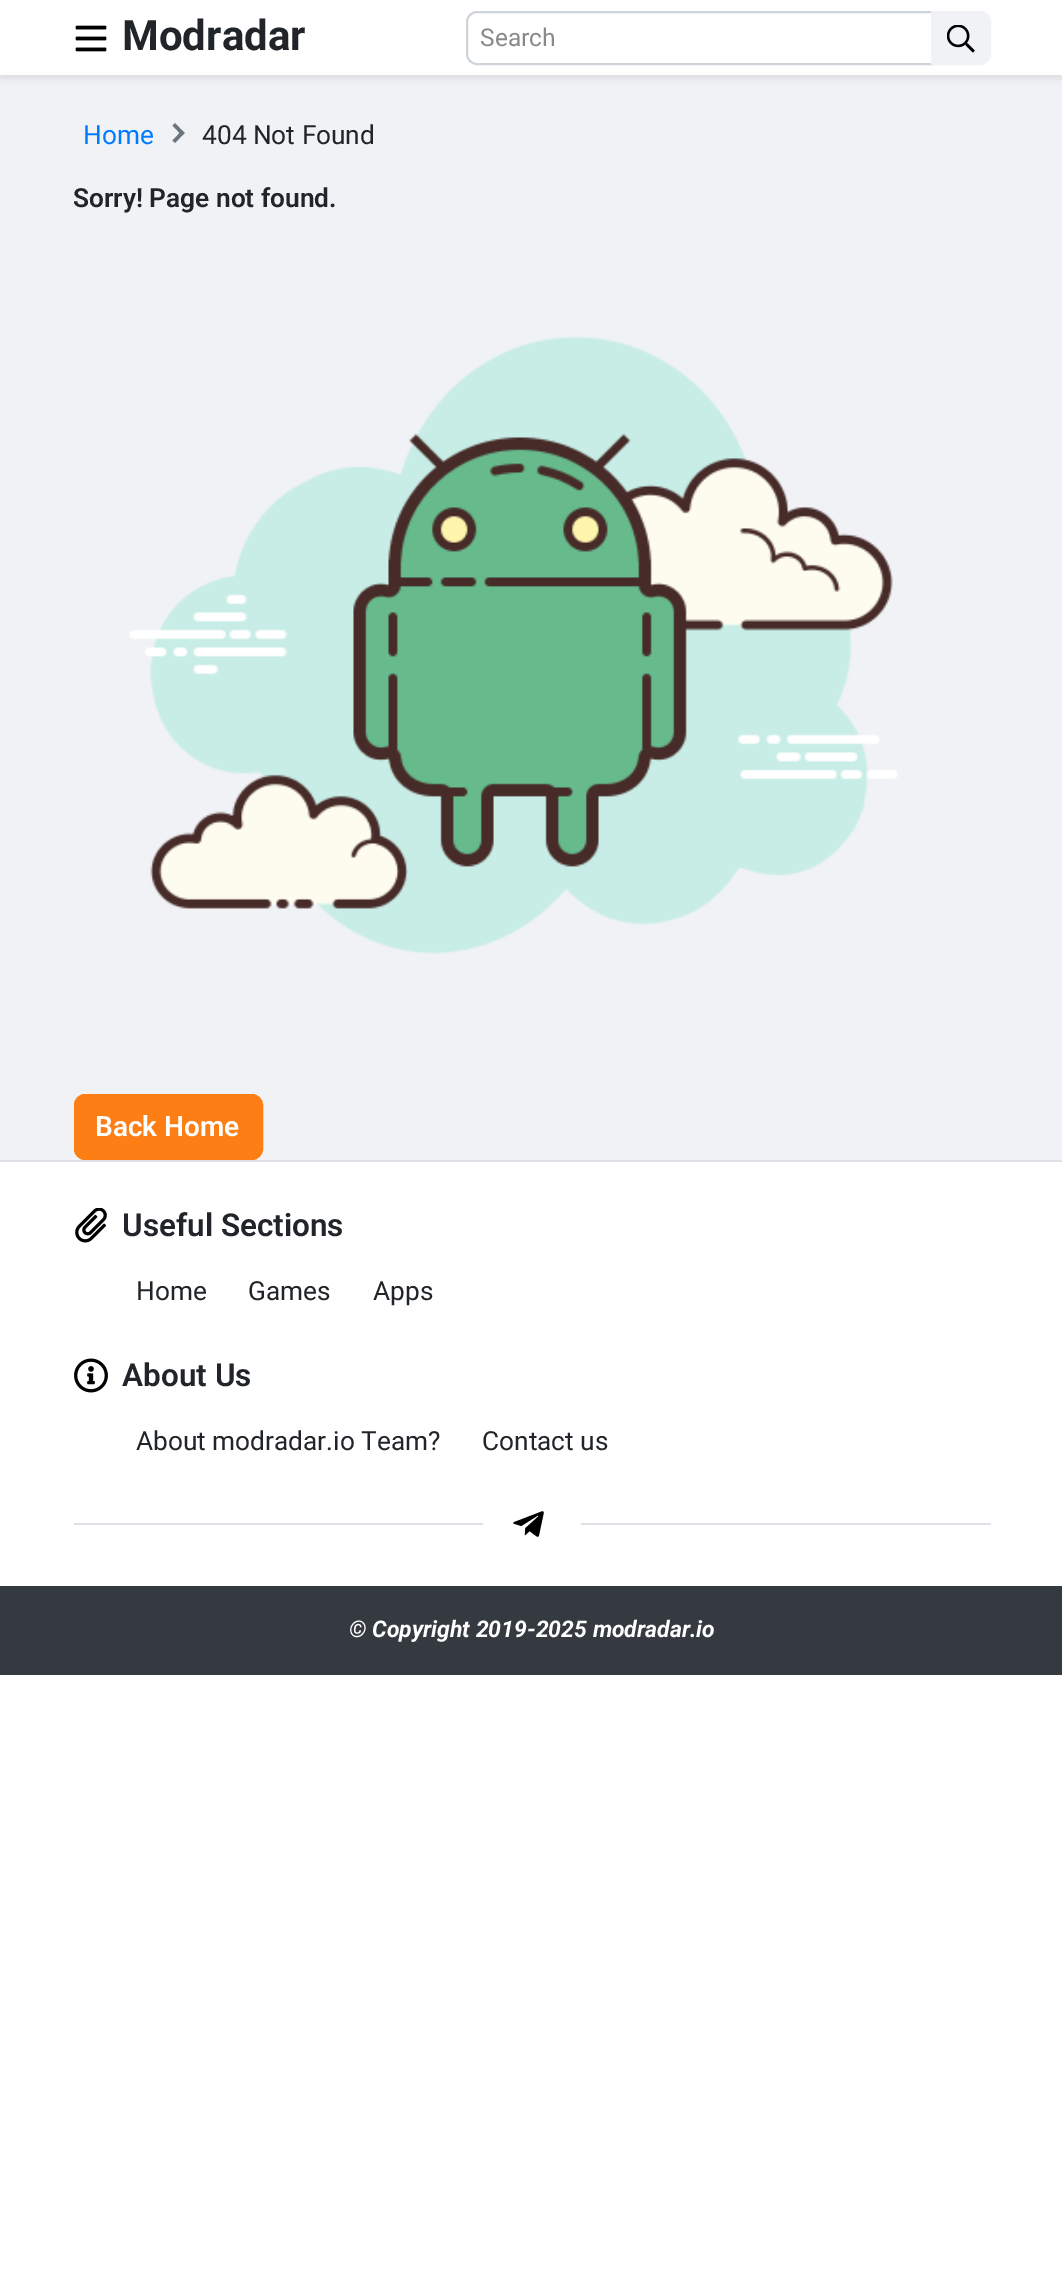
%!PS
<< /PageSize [1062 2295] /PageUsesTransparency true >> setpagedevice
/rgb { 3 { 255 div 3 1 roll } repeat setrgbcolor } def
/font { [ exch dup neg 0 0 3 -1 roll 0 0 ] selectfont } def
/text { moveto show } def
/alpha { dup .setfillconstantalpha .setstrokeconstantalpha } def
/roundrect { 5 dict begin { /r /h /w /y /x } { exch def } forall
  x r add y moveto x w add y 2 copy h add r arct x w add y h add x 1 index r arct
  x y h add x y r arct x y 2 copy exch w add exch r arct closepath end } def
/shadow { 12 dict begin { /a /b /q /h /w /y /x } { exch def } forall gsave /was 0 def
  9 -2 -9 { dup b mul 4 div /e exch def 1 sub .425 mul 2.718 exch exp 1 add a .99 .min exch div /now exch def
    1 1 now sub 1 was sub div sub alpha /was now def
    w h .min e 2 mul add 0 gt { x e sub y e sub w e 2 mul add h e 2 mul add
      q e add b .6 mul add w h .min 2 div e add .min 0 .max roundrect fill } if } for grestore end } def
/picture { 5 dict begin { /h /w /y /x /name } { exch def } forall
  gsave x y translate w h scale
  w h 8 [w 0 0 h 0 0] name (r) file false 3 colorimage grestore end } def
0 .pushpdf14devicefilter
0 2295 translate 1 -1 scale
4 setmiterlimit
255 255 255 rgb
0 0 1062 2295 rectfill
240 242 245 rgb
0 75 1062 1085 rectfill
0 0 0 rgb
0 4 1062 75 0 3.5 0.07 shadow
255 255 255 rgb
0 0 1062 75 rectfill
(img_01.rgb) 75 25 32 27 picture
206 212 218 rgb
2 setlinewidth
477 12 moveto 455 0 rlineto 0 52 rlineto -455 0 rlineto -5.5 0 -10 -4.5 -10 -10 rcurveto 0 -32 rlineto 0 -5.5 4.5 -10 10 -10 rcurveto closepath stroke
240 242 245 rgb
932 12 moveto 48 0 rlineto 5.5 0 10 4.5 10 10 rcurveto 0 32 rlineto 0 5.5 -4.5 10 -10 10 rcurveto -48 0 rlineto closepath gsave fill grestore
stroke
(img_02.rgb) 947 25 28 28 picture
108 117 125 rgb
175 123 moveto 9.5 10 rlineto -2.5 2.5 rlineto -9.5 -10 rlineto closepath fill
182 130.5 moveto 2.5 2.5 rlineto -9.5 10 rlineto -2.5 -2.5 rlineto closepath fill
(img_03.rgb) 129 336 769 618 picture
253 126 20 rgb
75 1095 187 64 10 roundrect gsave fill grestore
stroke
222 226 230 rgb
0 1160 1062 2 rectfill
(img_04.rgb) 75 1208 32 35 picture
(img_05.rgb) 74 1358 34 35 picture
74 1523 409 2 rectfill
(img_06.rgb) 513 1511 31 26 picture
581 1523 410 2 rectfill
52 58 64 rgb
0 1586 1062 89 rectfill
/Roboto-Bold 42 font
33 37 41 rgb
(Modradar) 122 50 text
/Roboto-Regular 24.5 font
137 137 137 rgb
(Search) 480 46 text
/Roboto-Regular 26.25 font
0 123 255 rgb
(Home) 83 144 text
33 37 41 rgb
(404 Not Found) 202 144 text
/Roboto-SemiBold 26.25 font
(Sorry! Page not found.) 73 207 text
/Roboto-SemiBold 28 font
255 255 255 rgb
(Back Home) 95 1136 text
/Roboto-SemiBold 31.5 font
33 37 41 rgb
(Useful Sections) 122 1236 text
/Roboto-Regular 26.25 font
(Home) 136 1300 text
(Games) 248 1300 text
(Apps) 373 1300 text
/Roboto-SemiBold 31.5 font
(About Us) 122 1386 text
/Roboto-Regular 26.25 font
(About modradar.io Team?) 136 1450 text
(Contact us) 482 1450 text
/Roboto-BoldItalic 23 font
255 255 255 rgb
(© Copyright 2019-2025 modradar.io) 349 1637 text
.poppdf14devicefilter showpage
